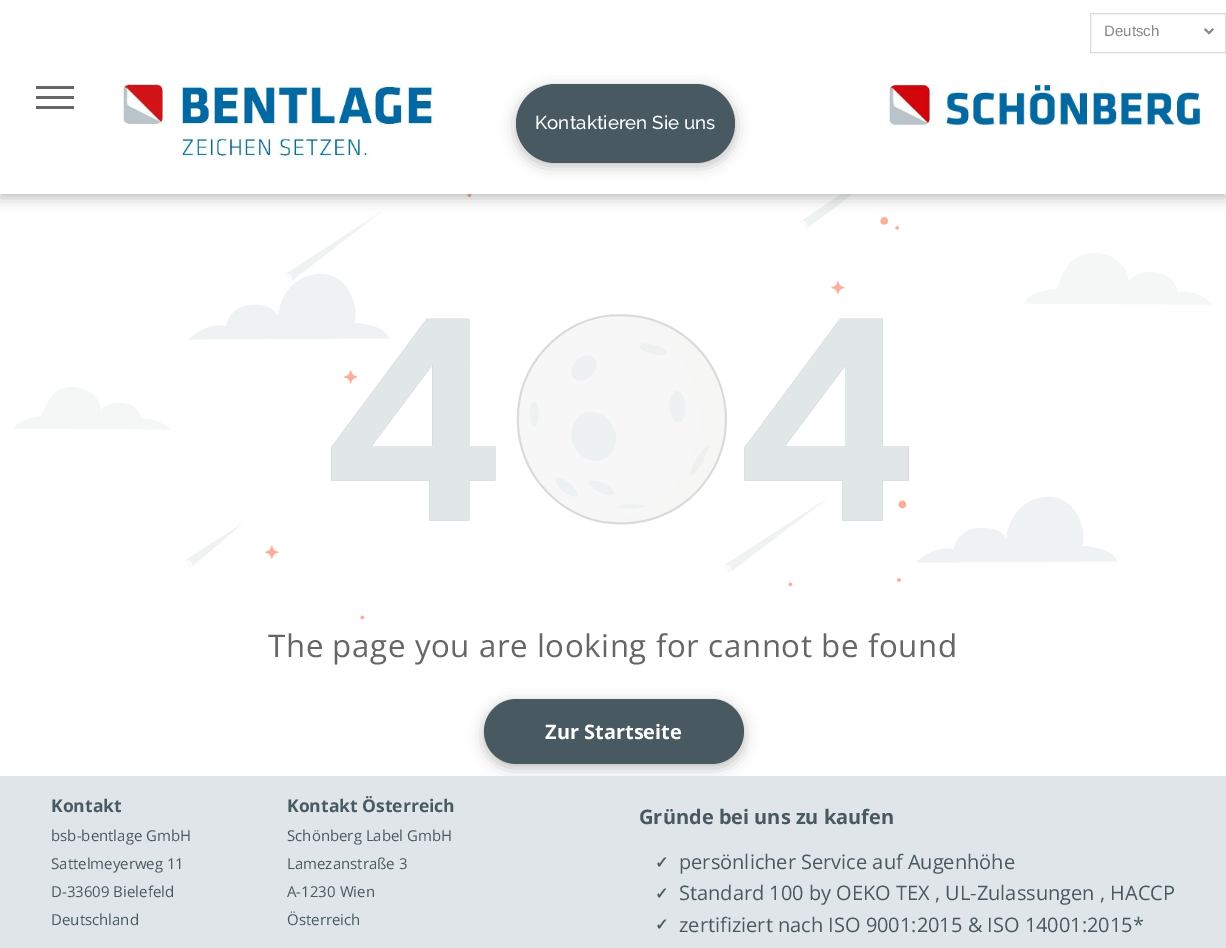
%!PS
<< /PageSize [1226 948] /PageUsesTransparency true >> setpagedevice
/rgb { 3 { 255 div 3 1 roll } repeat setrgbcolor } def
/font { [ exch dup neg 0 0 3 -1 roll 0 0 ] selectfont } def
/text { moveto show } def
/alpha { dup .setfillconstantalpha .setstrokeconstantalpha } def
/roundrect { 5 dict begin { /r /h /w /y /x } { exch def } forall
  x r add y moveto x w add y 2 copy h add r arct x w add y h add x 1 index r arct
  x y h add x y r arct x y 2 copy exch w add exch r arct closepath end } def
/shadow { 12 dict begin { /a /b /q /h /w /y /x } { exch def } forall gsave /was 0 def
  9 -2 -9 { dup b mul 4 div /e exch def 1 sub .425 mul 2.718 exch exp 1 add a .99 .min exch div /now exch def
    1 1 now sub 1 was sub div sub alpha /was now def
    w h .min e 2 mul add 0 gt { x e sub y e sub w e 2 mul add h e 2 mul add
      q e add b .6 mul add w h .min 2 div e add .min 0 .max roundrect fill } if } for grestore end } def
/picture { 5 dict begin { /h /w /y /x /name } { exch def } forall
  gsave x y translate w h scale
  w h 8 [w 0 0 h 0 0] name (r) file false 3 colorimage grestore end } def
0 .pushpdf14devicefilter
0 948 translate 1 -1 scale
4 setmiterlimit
255 255 255 rgb
0 0 1226 948 rectfill
(img_04.rgb) 14 194 1199 426 picture
0 0 0 rgb
0 4 1226 194 0 7 0.25 shadow
255 255 255 rgb
0 0 1226 194 rectfill
102 102 102 rgb
36 86 38 3 rectfill
36 96 38 3 rectfill
36 106 38 3 rectfill
218 218 218 rgb
1090.5 13.5 135 39 rectstroke
(img_01.rgb) 1204 28 10 7 picture
(img_02.rgb) 122 84 312 76 picture
0 0 0 rgb
516 88 219 78 39 7 0.25 shadow
73 89 97 rgb
516 84 219 79 39.5 roundrect fill
(img_03.rgb) 888 83 313 44 picture
0 0 0 rgb
484 703 260 65 32.5 7 0.25 shadow
73 89 97 rgb
484 699 260 65 32.5 roundrect fill
223 229 232 rgb
0 776 1226 172 rectfill
/LiberationSans-Regular 15 font
136 136 136 rgb
(Deutsch) 1104 36 text
/Raleway-Medium 18.75 font
255 255 255 rgb
(Kontaktieren Sie uns) 535 129 text
/OpenSans-Regular 31.25 font
102 102 102 rgb
268 657 moveto 0.6 0 (The page you are looking for cannot be found) ashow
/OpenSans-Bold 20 font
255 255 255 rgb
(Zur Startseite) 545 739 text
/OpenSans-Bold 17.5 font
73 89 97 rgb
(Kontakt) 51 812 text
(Kontakt Österreich) 287 812 text
/OpenSans-Regular 15 font
(bsb-bentlage GmbH) 51 841 text
(Schönberg Label GmbH) 287 841 text
(Sattelmeyerweg 11) 51 869 text
(Lamezanstraße 3) 287 869 text
(D-33609 Bielefeld) 51 897 text
(A-1230 Wien) 287 897 text
(Deutschland) 51 925 text
(Österreich) 287 925 text
/OpenSans-Bold 20 font
(Gründe bei uns zu kaufen) 639 824 text
/DejaVuSans-Bold 16 font
(✓) 655 868 text
/OpenSans-Regular 20 font
(persönlicher Service auf Augenhöhe) 679 869 text
/DejaVuSans-Bold 16 font
(✓) 655 899 text
/OpenSans-Regular 20 font
(Standard 100 by OEKO TEX , UL-Zulassungen , HACCP) 679 900 text
/DejaVuSans-Bold 16 font
(✓) 655 930 text
/OpenSans-Regular 20 font
(zertifiziert nach ISO 9001:2015 & ISO 14001:2015*) 679 932 text
.poppdf14devicefilter showpage
